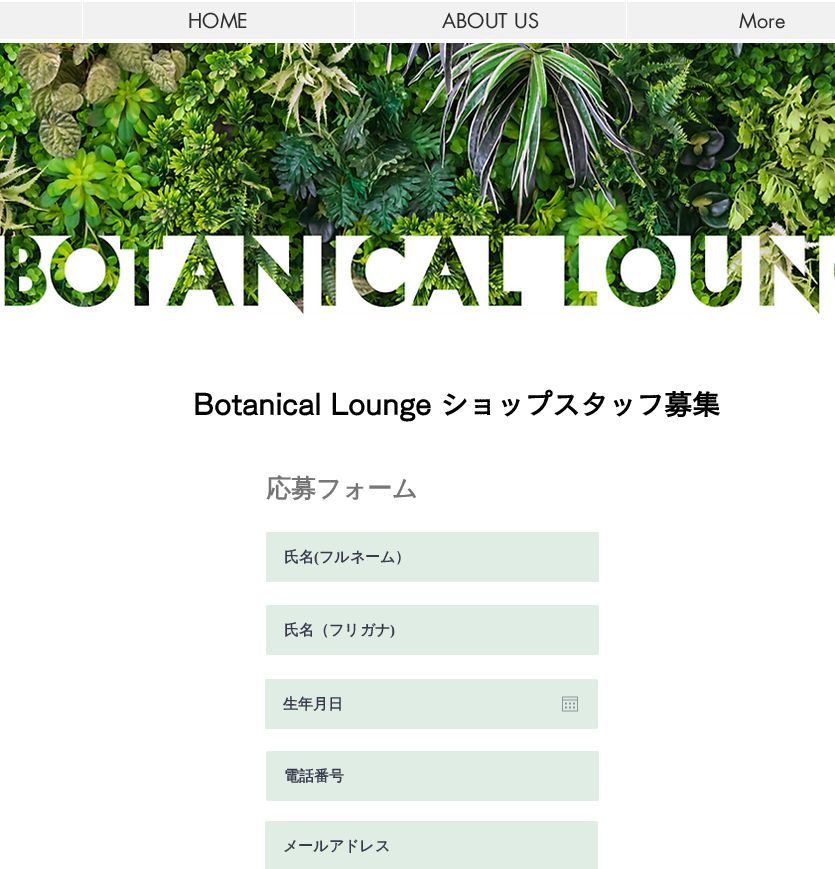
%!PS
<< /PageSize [835 869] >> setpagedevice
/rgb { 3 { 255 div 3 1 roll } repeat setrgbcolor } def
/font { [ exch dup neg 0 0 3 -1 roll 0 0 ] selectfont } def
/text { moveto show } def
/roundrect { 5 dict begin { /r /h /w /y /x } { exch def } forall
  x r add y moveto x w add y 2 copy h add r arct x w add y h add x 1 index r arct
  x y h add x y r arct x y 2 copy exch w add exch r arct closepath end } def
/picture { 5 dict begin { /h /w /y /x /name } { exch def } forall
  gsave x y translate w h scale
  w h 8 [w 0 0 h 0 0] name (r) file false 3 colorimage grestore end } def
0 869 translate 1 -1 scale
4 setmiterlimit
255 255 255 rgb
0 0 835 869 rectfill
241 241 241 rgb
0 2 835 37 rectfill
255 255 255 rgb
82 2 1 37 rectfill
354 2 1 37 rectfill
626 2 1 37 rectfill
(img_01.rgb) 0 43 835 271 picture
224 237 228 rgb
266 532 333 50 2 roundrect fill
266 605 333 50 2 roundrect fill
265 679 333 50 2 roundrect fill
(img_02.rgb) 562 696 16 16 picture
266 751 333 50 2 roundrect fill
265 821 333 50 2 roundrect fill
/futura-Regular 20 font
47 46 46 rgb
(HOME) 188 28 text
(ABOUT US) 442 28 text
(More) 739 28 text
/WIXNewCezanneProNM-Bold 28 font
0 0 0 rgb
(Botanical Lounge ショップスタッフ募集) 193 415 text
/WenQuanYiZenHei-Bold 25 font
118 118 118 rgb
(応募フォーム) 266 497 text
/WenQuanYiZenHei-Bold 15 font
55 59 77 rgb
(氏名) 284 562 text
/LiberationSerif-Bold 15 font
(\() 314 562 text
/WenQuanYiZenHei-Bold 15 font
(フルネーム）) 319 562 text
(氏名（フリガナ) 284 635 text
/LiberationSerif-Bold 15 font
(\)) 390 635 text
/WenQuanYiZenHei-Bold 15 font
(生年月日) 283 709 text
(電話番号) 284 781 text
(メールアドレス) 283 851 text
showpage
